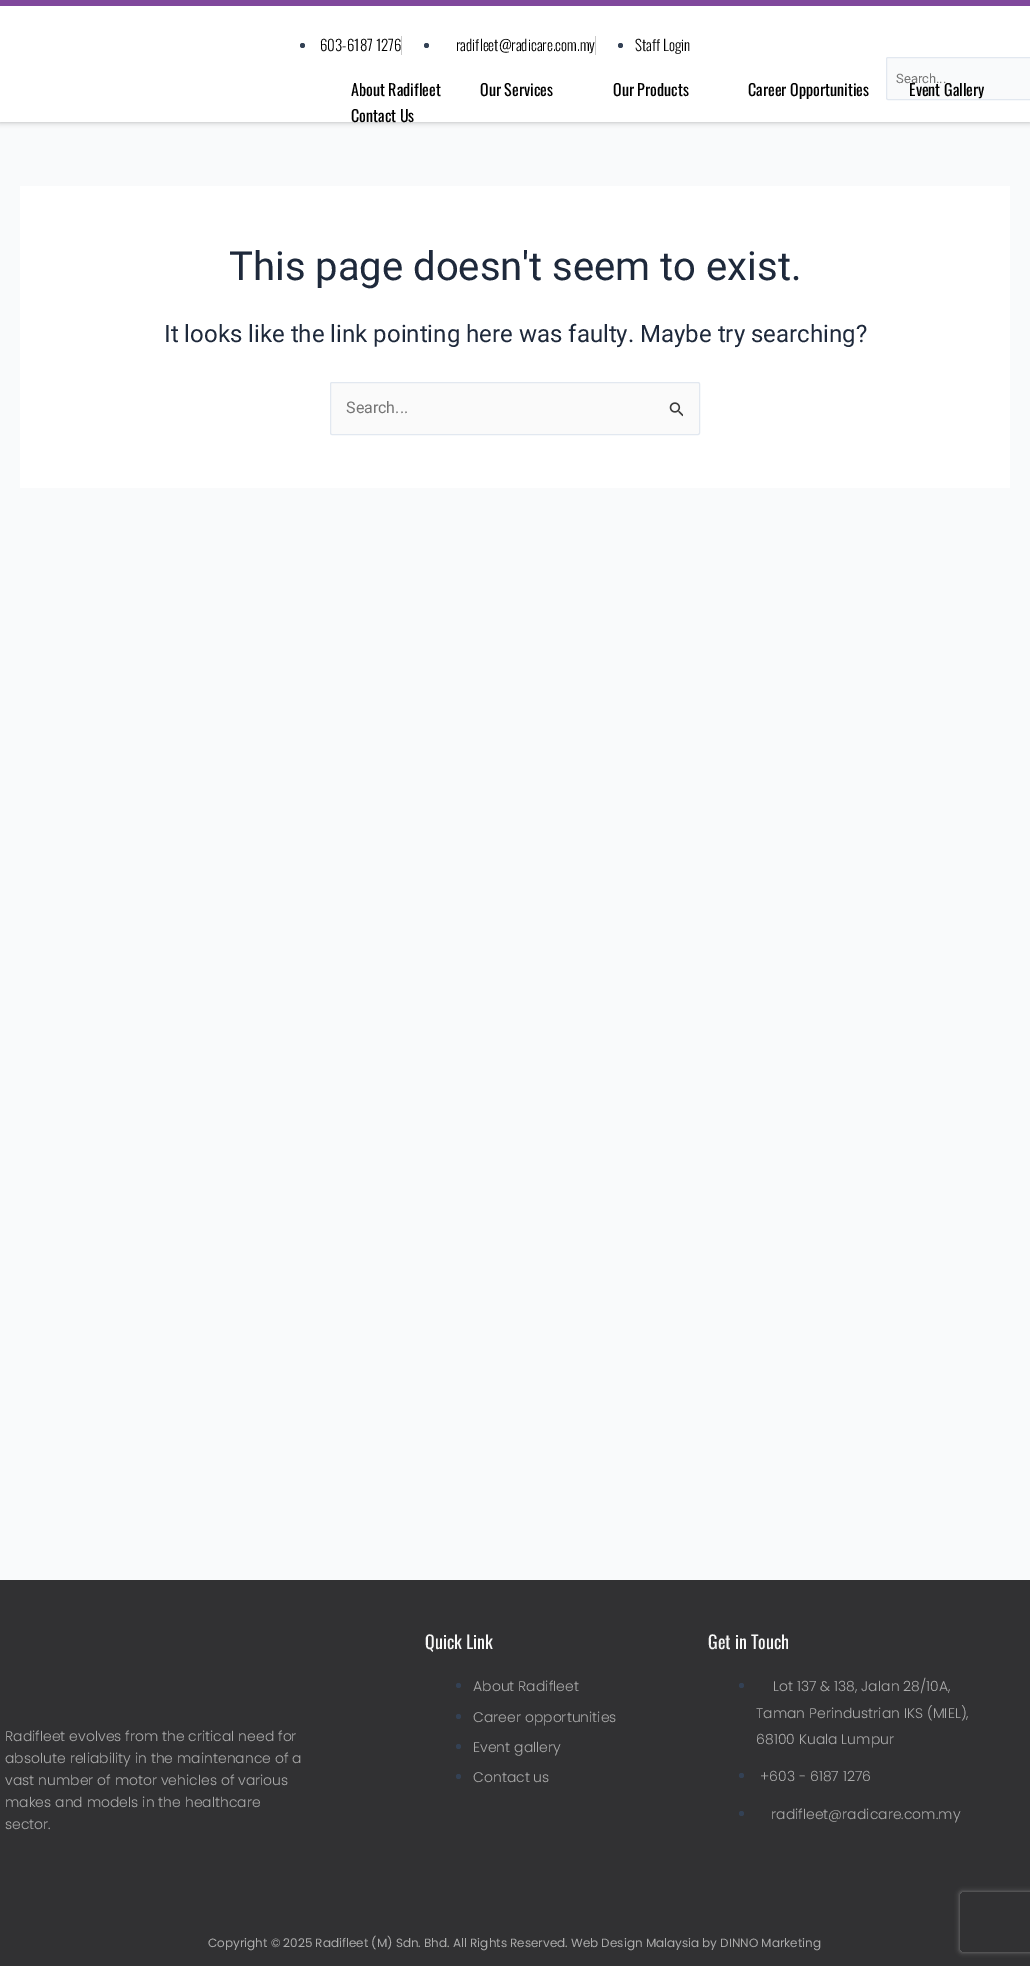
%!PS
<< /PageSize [1030 1966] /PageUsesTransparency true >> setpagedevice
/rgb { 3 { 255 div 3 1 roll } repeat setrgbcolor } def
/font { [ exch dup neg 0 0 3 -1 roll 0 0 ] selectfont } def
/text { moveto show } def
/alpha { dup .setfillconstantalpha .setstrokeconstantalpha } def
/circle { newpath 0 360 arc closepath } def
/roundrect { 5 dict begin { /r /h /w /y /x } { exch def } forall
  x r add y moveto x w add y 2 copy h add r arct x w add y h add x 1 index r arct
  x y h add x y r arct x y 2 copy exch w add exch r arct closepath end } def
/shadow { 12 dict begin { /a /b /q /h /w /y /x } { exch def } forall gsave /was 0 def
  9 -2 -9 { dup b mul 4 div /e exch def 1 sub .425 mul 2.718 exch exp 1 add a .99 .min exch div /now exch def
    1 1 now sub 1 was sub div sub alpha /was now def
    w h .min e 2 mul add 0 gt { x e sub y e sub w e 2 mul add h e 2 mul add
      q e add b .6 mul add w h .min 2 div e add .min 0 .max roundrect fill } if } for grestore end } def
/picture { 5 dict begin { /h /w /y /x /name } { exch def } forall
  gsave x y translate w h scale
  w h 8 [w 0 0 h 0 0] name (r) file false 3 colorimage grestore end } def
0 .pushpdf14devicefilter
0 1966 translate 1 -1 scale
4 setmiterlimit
249 250 251 rgb
0 0 1030 1966 rectfill
0 0 0 rgb
0 0 1030 122 0 3 0.3 shadow
255 255 255 rgb
0 6 1030 116 rectfill
128 72 156 rgb
0 0 1030 6 rectfill
51 65 85 rgb
302.5 45.5 2.5 circle fill
202 202 202 rgb
401 36 1 19 rectfill
51 65 85 rgb
426.5 45.5 2.5 circle fill
202 202 202 rgb
595 36 1 19 rectfill
51 65 85 rgb
620.5 45.5 2.5 circle fill
249 250 251 rgb
886.5 57.5 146 42 1.5 roundrect gsave fill grestore
226 232 240 rgb
stroke
255 255 255 rgb
20 186 990 302 rectfill
250 250 250 rgb
330.5 382.5 369 52 1.5 roundrect gsave fill grestore
226 232 240 rgb
stroke
(img_01.rgb) 669 402 14 15 picture
49 49 51 rgb
0 1580 1030 386 rectfill
51 65 85 rgb
458.5 1685.5 2.5 circle fill
458.5 1716.5 2.5 circle fill
458.5 1746.5 2.5 circle fill
458.5 1776.5 2.5 circle fill
741.5 1685.5 2.5 circle fill
741.5 1775.5 2.5 circle fill
741.5 1813.5 2.5 circle fill
gsave
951 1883 moveto 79 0 rlineto 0 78 rlineto -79 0 rlineto closepath 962 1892 moveto 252 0 rlineto 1 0 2 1 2 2 rcurveto 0 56 rlineto 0 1 -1 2 -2 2 rcurveto -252 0 rlineto -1 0 -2 -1 -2 -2 rcurveto 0 -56 rlineto 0 -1 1 -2 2 -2 rcurveto closepath eoclip newpath
128 128 128 rgb
960 1892 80 60 2 2.5 1 shadow
grestore
/Oswald-Light 15 font
0 0 0 rgb
(603-6187 1276) 320 51 text
(radifleet@radicare.com.my) 456 51 text
(Staff Login) 635 51 text
/Oswald-Regular 16 font
(About Radifleet) 351 96 text
(Our Services) 480 96 text
(Our Products) 613 96 text
(Career Opportunities) 748 96 text
(Event Gallery) 909 96 text
(Contact Us) 351 122 text
/Roboto-Regular 13 font
117 117 117 rgb
(Search...) 896 83 text
/Roboto-Regular 40 font
30 41 59 rgb
(This page doesn't seem to exist.) 229 280 text
/Roboto-Regular 24 font
(It looks like the link pointing here was faulty. Maybe try searching?) 164 342 text
/Roboto-Regular 16 font
117 117 117 rgb
(Search...) 346 413 text
/Poppins-Light 14 font
171 171 171 rgb
(Radifleet evolves from the critical need for) 5 1741 text
(absolute reliability in the maintenance of a) 5 1763 text
(vast number of motor vehicles of various) 5 1785 text
(makes and models in the healthcare) 5 1807 text
(sector.) 5 1829 text
/Oswald-Regular 18 font
248 248 248 rgb
(Quick Link) 425 1649 text
/Poppins-Light 14 font
171 171 171 rgb
(About Radifleet) 473 1691 text
(Career opportunities) 473 1722 text
(Event gallery) 473 1752 text
(Contact us) 473 1782 text
/Oswald-Regular 18 font
248 248 248 rgb
(Get in Touch) 708 1649 text
/Poppins-Light 14 font
171 171 171 rgb
(Lot 137 & 138, Jalan 28/10A,) 773 1691 text
(Taman Perindustrian IKS \(MIEL\),) 756 1718 text
(68100 Kuala Lumpur) 756 1744 text
(+603 - 6187 1276) 760 1781 text
(radifleet@radicare.com.my) 771 1819 text
/Poppins-Regular 12 font
(Copyright © 2025 Radifleet \(M\) Sdn. Bhd. All Rights Reserved. Web Design Malaysia by DINNO Marketing) 208 1947 text
.poppdf14devicefilter showpage
